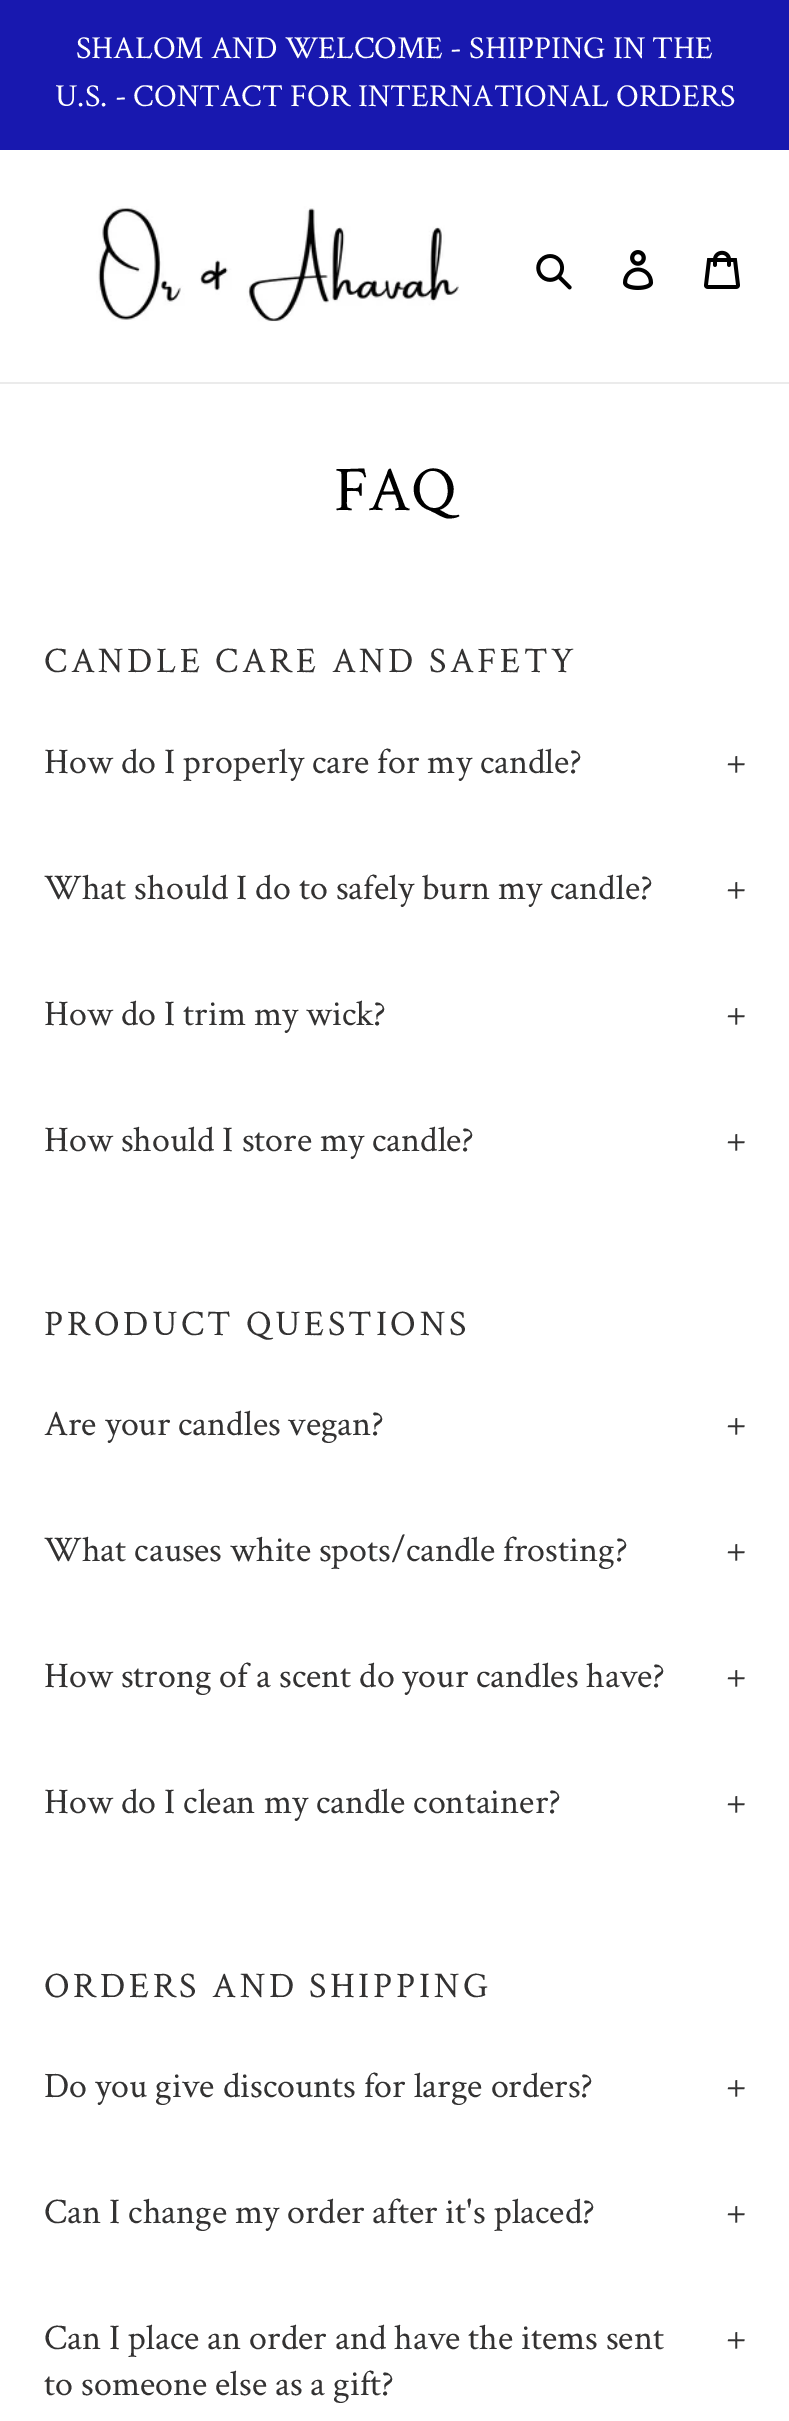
%!PS
<< /PageSize [789 2421] >> setpagedevice
/rgb { 3 { 255 div 3 1 roll } repeat setrgbcolor } def
/font { [ exch dup neg 0 0 3 -1 roll 0 0 ] selectfont } def
/text { moveto show } def
/picture { 5 dict begin { /h /w /y /x /name } { exch def } forall
  gsave x y translate w h scale
  w h 8 [w 0 0 h 0 0] name (r) file false 3 colorimage grestore end } def
0 2421 translate 1 -1 scale
4 setmiterlimit
255 255 255 rgb
0 0 789 2421 rectfill
24 24 175 rgb
0 0 789 150 rectfill
235 235 235 rgb
0 382 789 2 rectfill
(img_01.rgb) 96 206 364 116 picture
(img_02.rgb) 536 254 36 36 picture
(img_03.rgb) 623 250 31 40 picture
(img_04.rgb) 704 250 36 39 picture
/CrimsonText-Regular 32 font
255 255 255 rgb
(SHALOM AND WELCOME - SHIPPING IN THE) 76 58 text
(U.S. - CONTACT FOR INTERNATIONAL ORDERS) 55 106 text
/CrimsonText-Regular 64 font
0 0 0 rgb
(FAQ) 334 510 text
/CrimsonText-Regular 36 font
51 50 50 rgb
44 672 moveto 3.6 0 (CANDLE CARE AND SAFETY) ashow
(How do I properly care for my candle?) 44 773 text
(+) 726 773 text
(What should I do to safely burn my candle?) 44 899 text
(+) 726 899 text
(How do I trim my wick?) 44 1025 text
(+) 726 1025 text
(How should I store my candle?) 44 1151 text
(+) 726 1151 text
44 1335 moveto 3.6 0 (PRODUCT QUESTIONS) ashow
(Are your candles vegan?) 44 1435 text
(+) 726 1435 text
(What causes white spots/candle frosting?) 44 1561 text
(+) 726 1561 text
(How strong of a scent do your candles have?) 44 1687 text
(+) 726 1687 text
(How do I clean my candle container?) 44 1813 text
(+) 726 1813 text
44 1997 moveto 3.6 0 (ORDERS AND SHIPPING) ashow
(Do you give discounts for large orders?) 44 2097 text
(+) 726 2097 text
(Can I change my order after it's placed?) 44 2223 text
(+) 726 2223 text
(Can I place an order and have the items sent) 44 2349 text
(+) 726 2349 text
(to someone else as a gift?) 44 2395 text
showpage
